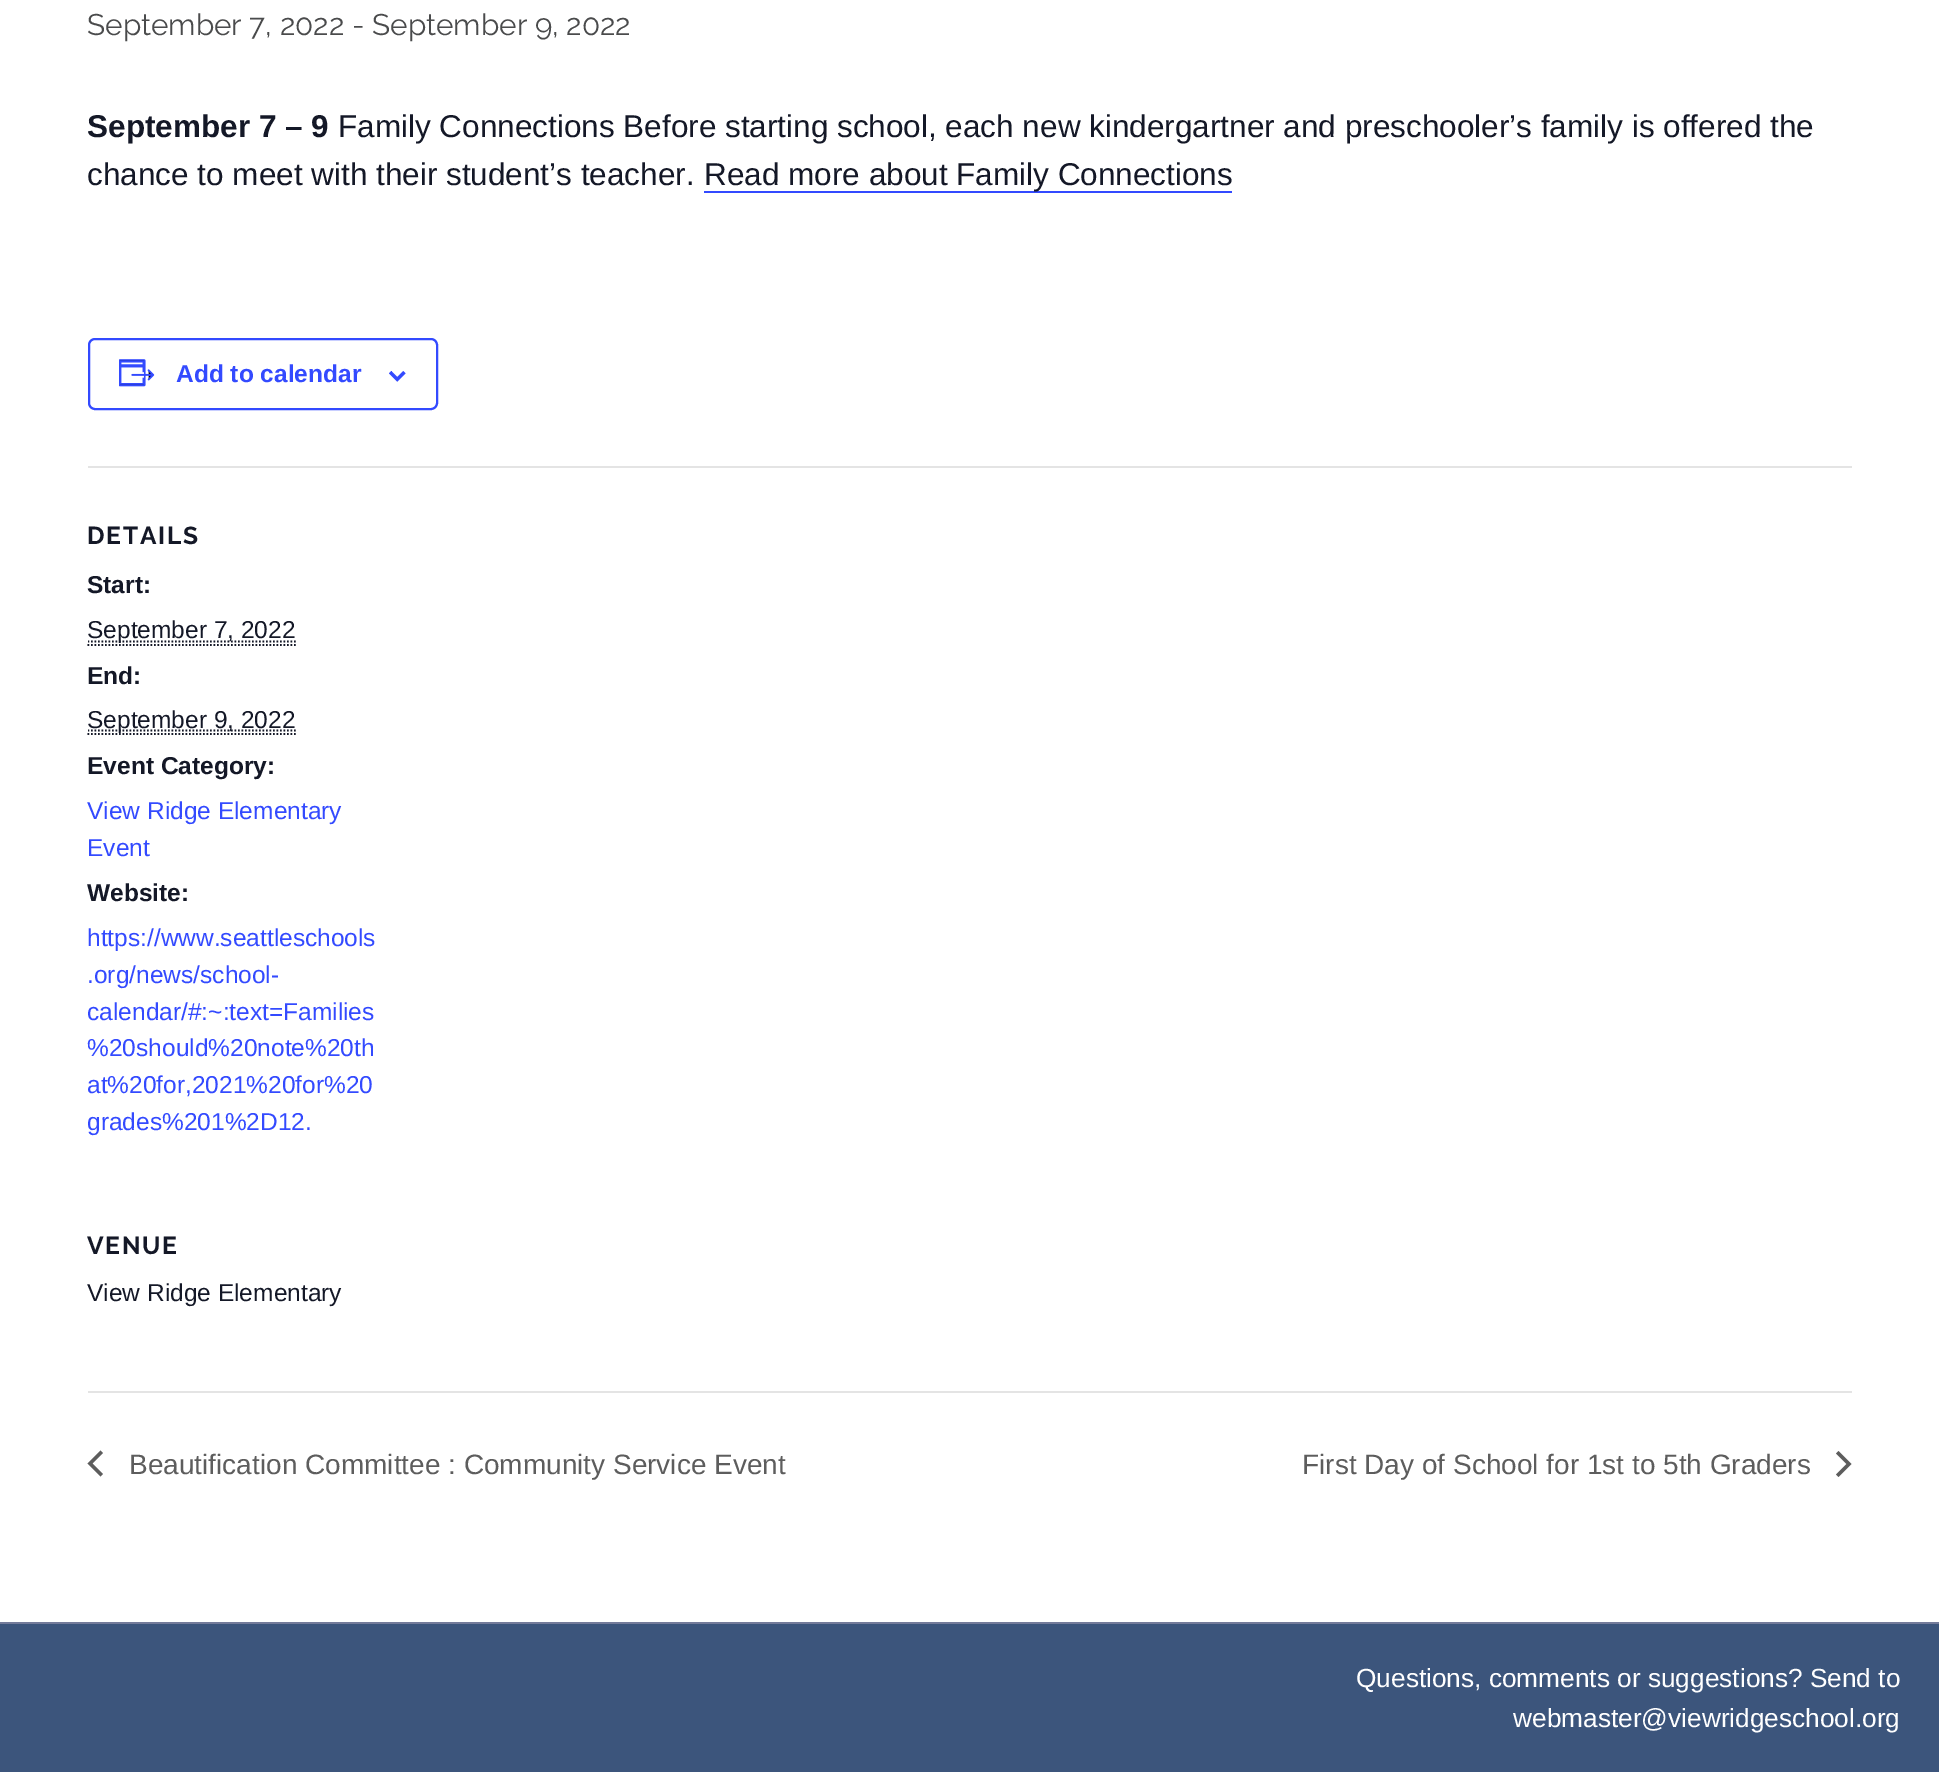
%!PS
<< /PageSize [1939 1772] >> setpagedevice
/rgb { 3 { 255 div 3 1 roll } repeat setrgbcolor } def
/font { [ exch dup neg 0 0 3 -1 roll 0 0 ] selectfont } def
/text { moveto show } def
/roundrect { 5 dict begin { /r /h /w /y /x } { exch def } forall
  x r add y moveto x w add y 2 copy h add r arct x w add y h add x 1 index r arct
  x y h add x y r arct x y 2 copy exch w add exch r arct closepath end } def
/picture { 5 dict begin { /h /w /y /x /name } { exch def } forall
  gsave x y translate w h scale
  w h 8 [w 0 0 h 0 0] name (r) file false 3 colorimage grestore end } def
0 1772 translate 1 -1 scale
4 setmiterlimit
255 255 255 rgb
0 0 1939 1772 rectfill
51 74 255 rgb
704 191 528 2 rectfill
2 setlinewidth
89 339 348 70 6 roundrect stroke
(img_01.rgb) 119 359 36 28 picture
(img_02.rgb) 389 371 17 11 picture
228 228 228 rgb
88 466 1764 2 rectfill
20 24 39 rgb
1.8 setlinewidth
[1.75 1.75] 0 setdash
87.5 645 moveto 208.5 0 rlineto stroke
gsave
88 103 1764 1236 rectclip
87.5 641.5 moveto 208.5 0 rlineto stroke
grestore
87.5 734 moveto 208.5 0 rlineto stroke
gsave
88 103 1764 1236 rectclip
87.5 730.5 moveto 208.5 0 rlineto stroke
grestore
228 228 228 rgb
88 1391 1764 2 rectfill
93 93 93 rgb
103 1474 moveto -2.5 2.5 rlineto -13 -13 rlineto 13 -13 rlineto 2.5 2.5 rlineto -10.5 10.5 rlineto closepath fill
1836 1453.5 moveto 2.5 -2.5 rlineto 13 13 rlineto -13 13 rlineto -2.5 -2.5 rlineto 10.5 -10.5 rlineto closepath fill
60 85 124 rgb
0 1624 1939 148 rectfill
115 123 154 rgb
0 1622 1939 2 rectfill
/Raleway-Regular 29.75 font
74 75 76 rgb
(September 7, 2022 - September 9, 2022) 87 35 text
/LiberationSans-Bold 31.5 font
20 24 39 rgb
(September 7 – 9) 87 137 text
/LiberationSans-Regular 31.5 font
(Family Connections Before starting school, each new kindergartner and preschooler’s family is offered the) 338 137 text
(chance to meet with their student’s teacher.) 87 185 text
(Read more about Family Connections) 704 185 text
/LiberationSans-Bold 24.5 font
51 74 255 rgb
(Add to calendar) 176 382 text
/Raleway-Bold 24.5 font
20 24 39 rgb
87 544 moveto 1.75 0 (DETAILS) ashow
/LiberationSans-Bold 24.5 font
(Start:) 87 593 text
/LiberationSans-Regular 24.5 font
(September 7, 2022) 87 638 text
/LiberationSans-Bold 24.5 font
(End:) 87 684 text
/LiberationSans-Regular 24.5 font
(September 9, 2022) 87 728 text
/LiberationSans-Bold 24.5 font
(Event Category:) 87 774 text
/LiberationSans-Regular 24.5 font
51 74 255 rgb
(View Ridge Elementary) 87 819 text
(Event) 87 856 text
/LiberationSans-Bold 24.5 font
20 24 39 rgb
(Website:) 87 901 text
/LiberationSans-Regular 24.5 font
51 74 255 rgb
(https://www.seattleschools) 87 946 text
(.org/news/school-) 87 983 text
(calendar/#:~:text=Families) 87 1020 text
(%20should%20note%20th) 87 1056 text
(at%20for,2021%20for%20) 87 1093 text
(grades%201%2D12.) 87 1130 text
/Raleway-Bold 24.5 font
20 24 39 rgb
87 1254 moveto 1.75 0 (VENUE) ashow
/LiberationSans-Regular 24.5 font
(View Ridge Elementary) 87 1301 text
/LiberationSans-Regular 28 font
93 93 93 rgb
(Beautification Committee : Community Service Event) 129 1474 text
(First Day of School for 1st to 5th Graders) 1302 1474 text
/LiberationSans-Regular 26.25 font
255 255 255 rgb
(Questions, comments or suggestions? Send to) 1356 1687 text
(webmaster@viewridgeschool.org) 1513 1727 text
showpage
